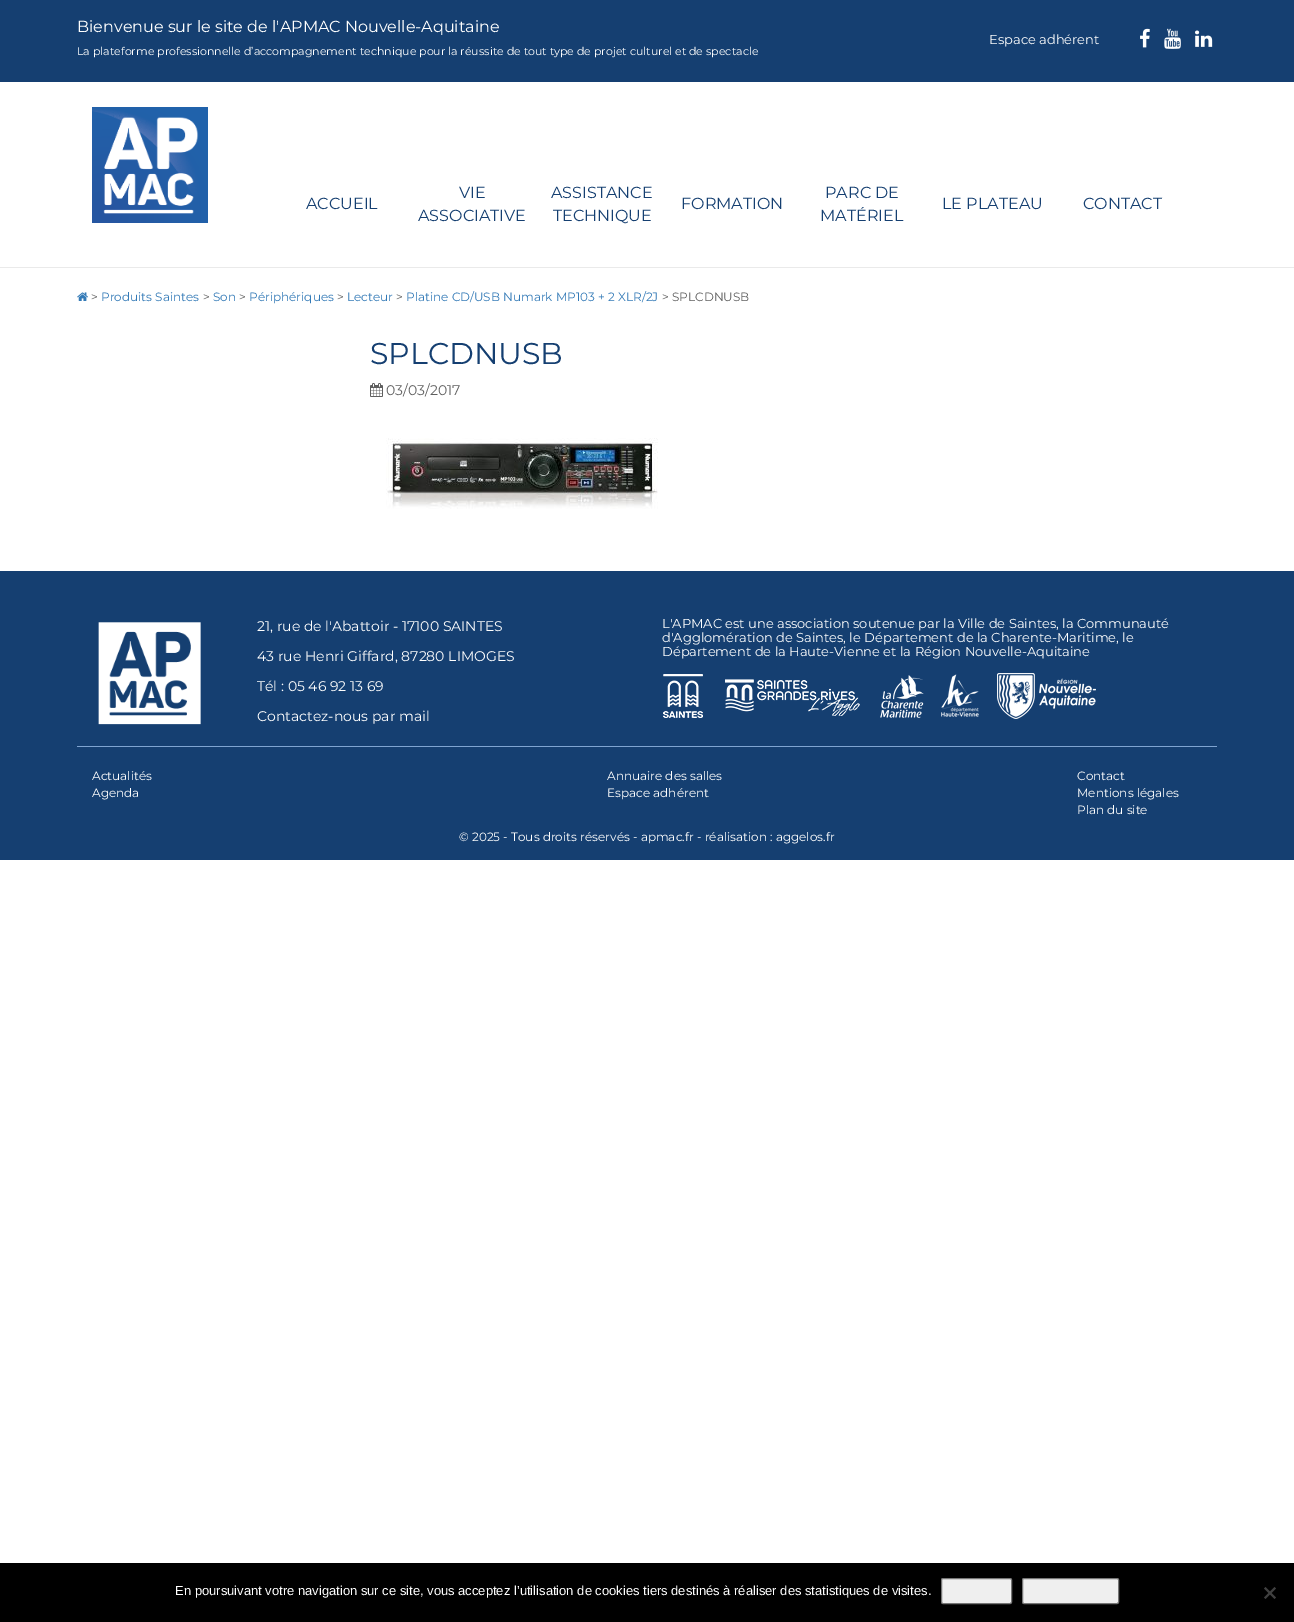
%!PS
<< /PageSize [1294 1622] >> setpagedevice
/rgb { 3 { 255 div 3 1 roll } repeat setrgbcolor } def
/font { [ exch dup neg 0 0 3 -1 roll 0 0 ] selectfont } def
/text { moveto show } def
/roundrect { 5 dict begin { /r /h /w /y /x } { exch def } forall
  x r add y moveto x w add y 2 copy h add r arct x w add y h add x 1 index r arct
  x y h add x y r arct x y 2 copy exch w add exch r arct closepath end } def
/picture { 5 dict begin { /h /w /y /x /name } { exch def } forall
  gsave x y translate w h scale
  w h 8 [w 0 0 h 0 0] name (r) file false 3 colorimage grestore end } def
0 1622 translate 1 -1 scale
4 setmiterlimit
255 255 255 rgb
0 0 1294 1622 rectfill
21 63 113 rgb
0 0 1294 82 rectfill
(img_01.rgb) 1140 28 10 20 picture
(img_02.rgb) 1164 28 17 21 picture
(img_03.rgb) 1195 30 18 17 picture
(img_04.rgb) 92 107 116 116 picture
234 234 234 rgb
0 267 1294 1 rectfill
(img_05.rgb) 77 292 11 9 picture
(img_06.rgb) 370 383 13 14 picture
(img_07.rgb) 386 438 272 71 picture
21 63 113 rgb
0 571 1294 289 rectfill
127 164 209 rgb
77 746 1140 1 rectfill
(img_08.rgb) 98 622 103 103 picture
(img_09.rgb) 663 674 40 44 picture
(img_10.rgb) 725 679 135 37 picture
(img_11.rgb) 880 675 44 43 picture
(img_12.rgb) 941 674 38 43 picture
(img_13.rgb) 997 673 99 46 picture
0 0 0 rgb
0 1563 1294 59 rectfill
239 239 239 rgb
941.5 1578.5 70 25 1.5 roundrect gsave fill grestore
118 118 118 rgb
stroke
239 239 239 rgb
1022.5 1578.5 96 25 1.5 roundrect gsave fill grestore
118 118 118 rgb
stroke
64 64 64 rgb
1274.5 1587 moveto 1.5 1.5 rlineto -10.5 10.5 rlineto -1.5 -1.5 rlineto closepath fill
1264 1588.5 moveto 1.5 -1.5 rlineto 10.5 10.5 rlineto -1.5 1.5 rlineto closepath fill
/Montserrat-Regular 16 font
255 255 255 rgb
(Bienvenue sur le site de l'APMAC Nouvelle-Aquitaine) 77 32 text
/Montserrat-Regular 11 font
(La plateforme professionnelle d’accompagnement technique pour la réussite de tout type de projet culturel et de spectacle) 77 55 text
/Montserrat-Regular 13 font
(Espace adhérent) 989 44 text
/Montserrat-Regular 16 font
21 63 113 rgb
(ACCUEIL) 306 209 text
(VIE) 459 198 text
(ASSOCIATIVE) 418 221 text
(ASSISTANCE) 551 198 text
(TECHNIQUE) 553 221 text
(FORMATION) 681 209 text
(PARC DE) 825 198 text
(MATÉRIEL) 820 221 text
(LE PLATEAU) 942 209 text
(CONTACT) 1083 209 text
/Montserrat-Regular 12 font
95 95 95 rgb
(>) 91 301 text
51 122 183 rgb
(Produits Saintes) 101 301 text
95 95 95 rgb
(>) 203 301 text
51 122 183 rgb
(Son) 213 301 text
95 95 95 rgb
(>) 239 301 text
51 122 183 rgb
(Périphériques) 249 301 text
95 95 95 rgb
(>) 337 301 text
51 122 183 rgb
(Lecteur) 347 301 text
95 95 95 rgb
(>) 396 301 text
51 122 183 rgb
(Platine CD/USB Numark MP103 + 2 XLR/2J) 406 301 text
95 95 95 rgb
(> SPLCDNUSB) 662 301 text
/Montserrat-Regular 30 font
21 63 113 rgb
(SPLCDNUSB) 370 364 text
/Montserrat-Regular 14 font
95 95 95 rgb
(03/03/2017) 386 395 text
255 255 255 rgb
(21, rue de l'Abattoir - 17100 SAINTES) 257 631 text
(43 rue Henri Giffard, 87280 LIMOGES) 257 661 text
(Tél : 05 46 92 13 69) 257 691 text
(Contactez-nous par mail) 257 721 text
/Montserrat-Regular 13 font
(L'APMAC est une association soutenue par la Ville de Saintes, la Communauté) 662 628 text
(d'Agglomération de Saintes, le Département de la Charente-Maritime, le) 662 642 text
(Département de la Haute-Vienne et la Région Nouvelle-Aquitaine) 662 656 text
/Montserrat-Regular 12 font
(Actualités) 92 780 text
(Agenda) 92 797 text
(Annuaire des salles) 607 780 text
(Espace adhérent) 607 797 text
(Contact) 1077 780 text
(Mentions légales) 1077 797 text
(Plan du site) 1077 814 text
(© 2025 - Tous droits réservés - apmac.fr - réalisation : aggelos.fr) 459 841 text
/LiberationSans-Regular 13 font
(En poursuivant votre navigation sur ce site, vous acceptez l’utilisation de cookies tiers destinés à réaliser des statistiques de visites.) 175 1595 text
showpage
